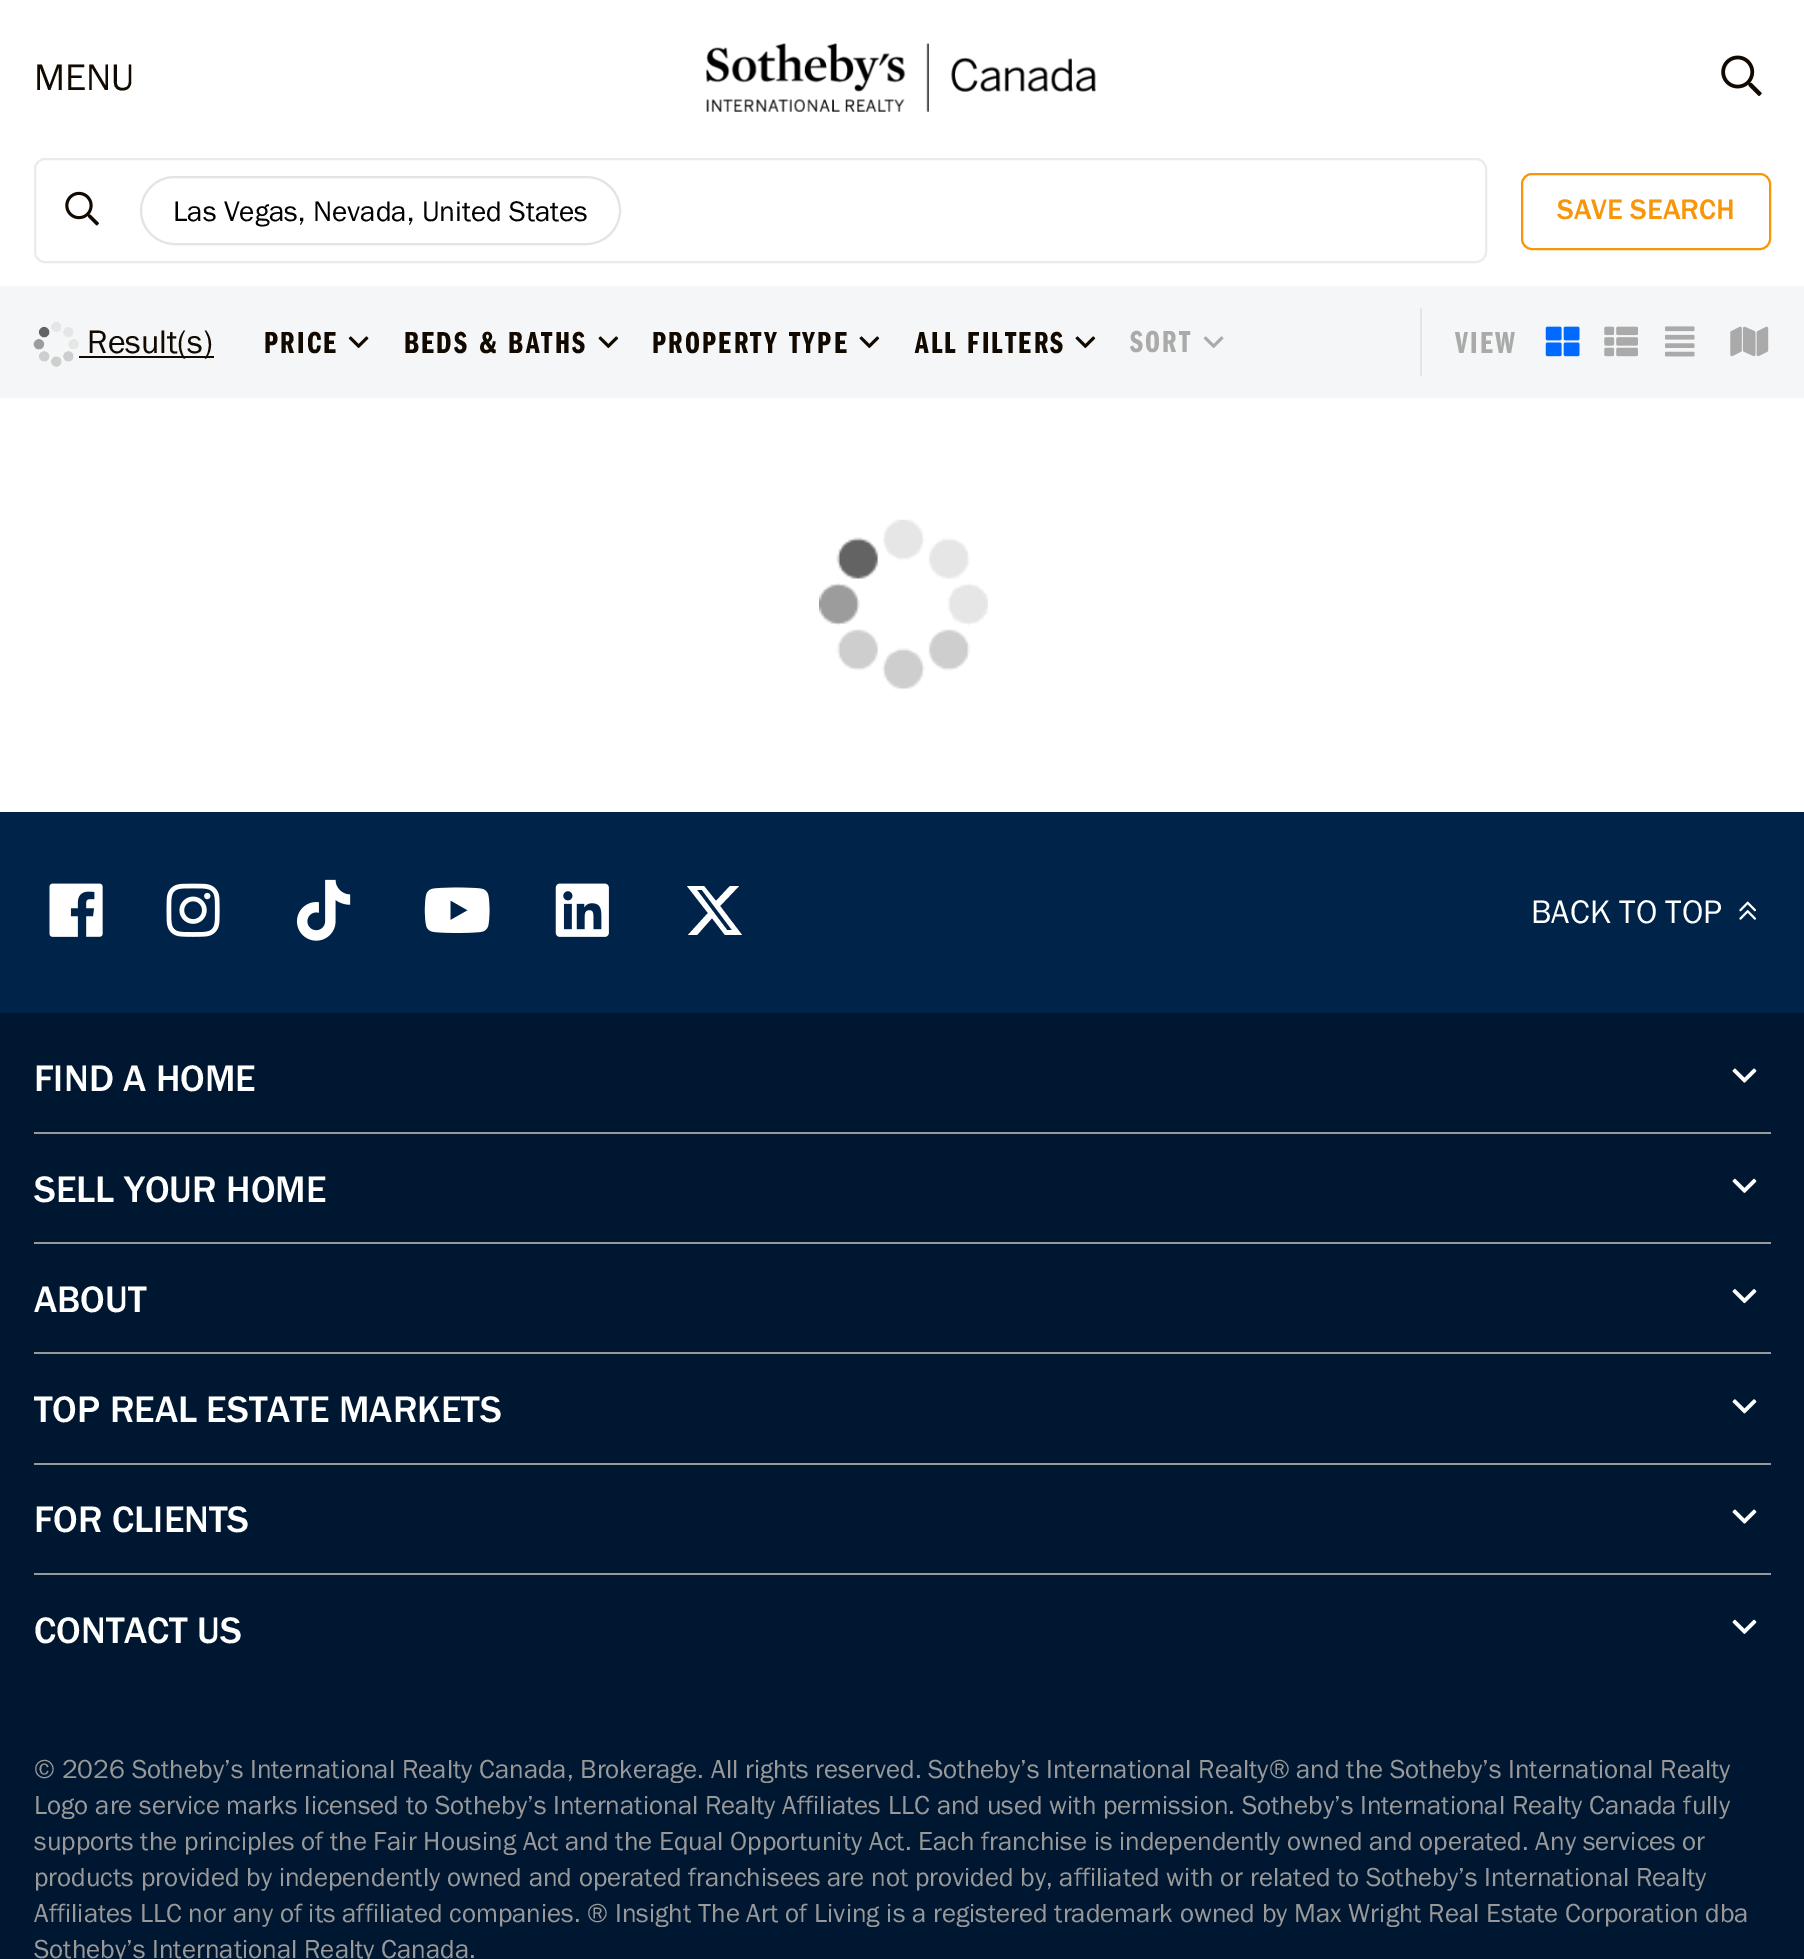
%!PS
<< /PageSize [1804 1959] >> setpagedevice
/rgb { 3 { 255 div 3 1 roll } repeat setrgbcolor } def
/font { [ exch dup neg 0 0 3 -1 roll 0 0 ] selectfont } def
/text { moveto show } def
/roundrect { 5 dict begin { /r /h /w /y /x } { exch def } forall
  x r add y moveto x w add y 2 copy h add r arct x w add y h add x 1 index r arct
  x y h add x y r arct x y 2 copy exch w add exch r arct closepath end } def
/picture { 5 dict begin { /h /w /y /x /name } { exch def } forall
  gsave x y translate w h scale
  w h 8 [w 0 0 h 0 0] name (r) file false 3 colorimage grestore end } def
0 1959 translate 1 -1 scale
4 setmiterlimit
255 255 255 rgb
0 0 1804 1959 rectfill
(img_01.rgb) 706 43 390 69 picture
(img_02.rgb) 1721 55 41 41 picture
235 235 235 rgb
2 setlinewidth
35 159 1451 103 10 roundrect stroke
(img_03.rgb) 65 191 34 35 picture
228 228 228 rgb
141 177 479 67 33.5 roundrect stroke
248 150 9 rgb
1522 174 248 75 10 roundrect stroke
245 246 247 rgb
0 286 1804 112 rectfill
(img_04.rgb) 33 321 46 46 picture
18 9 0 rgb
79 356 135 2 rectfill
(img_05.rgb) 348 336 21 12 picture
(img_06.rgb) 598 336 21 12 picture
(img_06.rgb) 859 336 21 12 picture
(img_06.rgb) 1075 336 21 12 picture
(img_07.rgb) 1203 336 21 12 picture
228 228 228 rgb
1420 308 2 68 rectfill
(img_08.rgb) 1545 326 35 31 picture
(img_09.rgb) 1604 326 34 31 picture
(img_10.rgb) 1665 326 30 31 picture
(img_11.rgb) 1730 326 39 31 picture
(img_12.rgb) 819 519 169 170 picture
0 35 73 rgb
0 812 1804 201 rectfill
(img_13.rgb) 49 883 54 54 picture
(img_14.rgb) 166 883 54 54 picture
(img_15.rgb) 296 879 55 62 picture
(img_16.rgb) 424 887 66 46 picture
(img_17.rgb) 555 883 54 54 picture
255 255 255 rgb
730 886 moveto 9 0 rlineto -19 20 rlineto 22 29 rlineto -17 0 rlineto -13 -17 rlineto -15 17 rlineto -9 0 rlineto 20 -22 rlineto -21 -27 rlineto 17 0 rlineto 12 15 rlineto closepath 727 930 moveto 5 0 rlineto -30 -40 rlineto -5 0 rlineto closepath fill
(img_18.rgb) 1739 901 18 19 picture
0 23 49 rgb
0 1013 1804 946 rectfill
153 153 153 rgb
34 1132 1737 2 rectfill
(img_19.rgb) 1732 1068 25 15 picture
34 1242 1737 2 rectfill
(img_20.rgb) 1732 1178 25 15 picture
34 1352 1737 2 rectfill
(img_21.rgb) 1732 1289 25 15 picture
34 1463 1737 2 rectfill
(img_22.rgb) 1732 1399 25 15 picture
34 1573 1737 2 rectfill
(img_19.rgb) 1732 1509 25 15 picture
(img_20.rgb) 1732 1619 25 15 picture
/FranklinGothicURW-Regular 38.25 font
18 9 0 rgb
(MENU) 34 90 text
/FranklinGothicURW-Regular 29.25 font
0 0 0 rgb
(Las Vegas, Nevada, United States) 173 221 text
/FranklinGothicURW-Medium 29.25 font
248 150 9 rgb
(SAVE SEARCH) 1557 219 text
/FranklinGothicURW-Regular 33.75 font
18 9 0 rgb
(Result\(s\)) 87 353 text
/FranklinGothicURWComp-SemiBold 31.5 font
264 353 moveto 2.25 0 (PRICE) ashow
404 353 moveto 2.25 0 (BEDS & BATHS) ashow
652 353 moveto 2.25 0 (PROPERTY TYPE) ashow
915 353 moveto 2.25 0 (ALL FILTERS) ashow
170 170 170 rgb
1130 352 moveto 2.25 0 (SORT) ashow
1455 353 moveto 2.25 0 (VIEW) ashow
/FranklinGothicURW-Regular 33.75 font
255 255 255 rgb
(BACK TO TOP) 1531 923 text
/FranklinGothicURW-Medium 38.25 font
(FIND A HOME) 34 1091 text
(SELL YOUR HOME) 34 1202 text
(ABOUT) 34 1312 text
(TOP REAL ESTATE MARKETS) 34 1422 text
(FOR CLIENTS) 34 1532 text
(CONTACT US) 34 1643 text
/FranklinGothicURW-Regular 27 font
153 153 153 rgb
(© 2026 Sotheby’s International Realty Canada, Brokerage. All rights reserved. Sotheby’s International Realty® and the Sotheby’s International Realty) 34 1778 text
(Logo are service marks licensed to Sotheby’s International Realty Affiliates LLC and used with permission. Sotheby’s International Realty Canada fully) 34 1814 text
(supports the principles of the Fair Housing Act and the Equal Opportunity Act. Each franchise is independently owned and operated. Any services or) 34 1850 text
(products provided by independently owned and operated franchisees are not provided by, affiliated with or related to Sotheby’s International Realty) 34 1886 text
(Affiliates LLC nor any of its affiliated companies. ® Insight The Art of Living is a registered trademark owned by Max Wright Real Estate Corporation dba) 34 1922 text
(Sotheby’s International Realty Canada.) 34 1958 text
showpage
